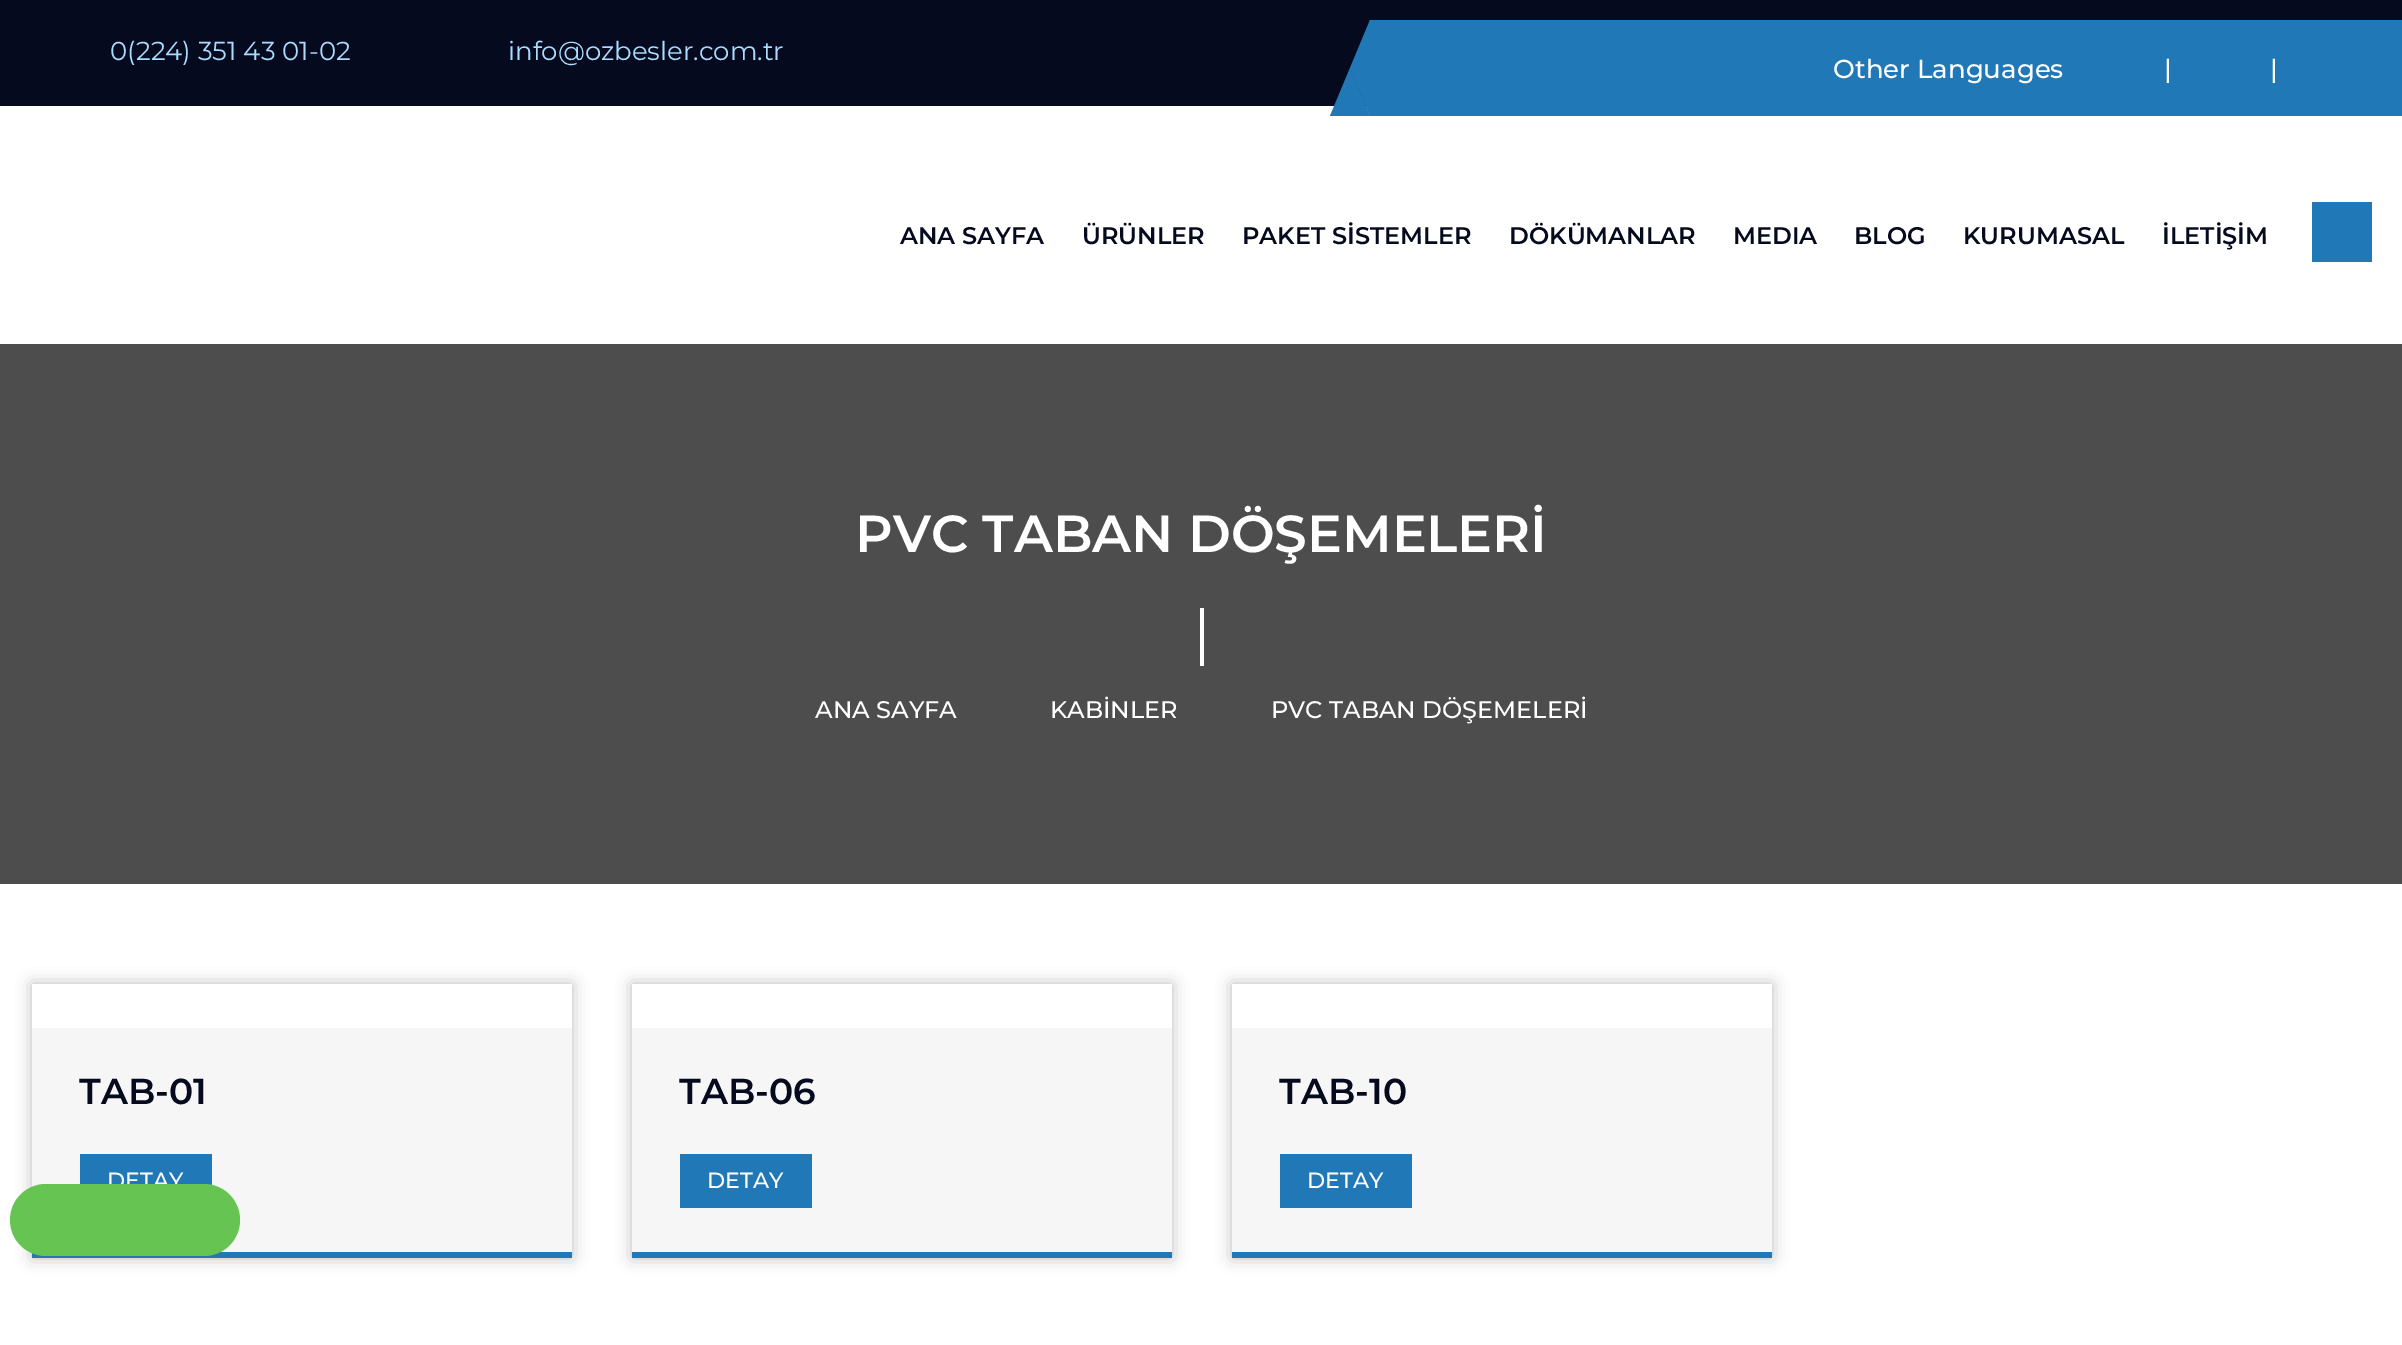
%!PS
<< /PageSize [2402 1345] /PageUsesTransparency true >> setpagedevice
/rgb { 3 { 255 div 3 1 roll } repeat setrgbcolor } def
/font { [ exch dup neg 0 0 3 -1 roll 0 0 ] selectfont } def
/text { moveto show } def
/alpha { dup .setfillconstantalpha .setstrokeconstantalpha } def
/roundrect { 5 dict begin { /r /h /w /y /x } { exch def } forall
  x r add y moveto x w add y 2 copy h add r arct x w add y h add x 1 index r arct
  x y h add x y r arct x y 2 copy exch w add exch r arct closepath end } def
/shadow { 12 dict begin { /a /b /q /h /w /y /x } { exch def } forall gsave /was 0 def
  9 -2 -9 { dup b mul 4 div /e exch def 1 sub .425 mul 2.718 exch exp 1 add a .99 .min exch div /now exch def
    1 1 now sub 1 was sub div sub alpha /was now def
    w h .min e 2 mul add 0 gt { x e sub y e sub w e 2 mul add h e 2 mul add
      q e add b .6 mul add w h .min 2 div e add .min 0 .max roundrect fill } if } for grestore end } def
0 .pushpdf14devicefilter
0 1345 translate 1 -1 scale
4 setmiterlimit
255 255 255 rgb
0 0 2402 1345 rectfill
5 10 30 rgb
0 0 2402 106 rectfill
32 121 182 rgb
1370 20 moveto 0 96 rlineto -20 -48 rlineto closepath fill
1370 116 moveto -40 0 rlineto 20 -48 rlineto closepath fill
1370 20 1032 96 rectfill
2312 202 60 60 rectfill
77 77 77 rgb
0 344 2402 540 rectfill
255 255 255 rgb
1200 608 4 58 rectfill
gsave
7 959 moveto 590 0 rlineto 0 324 rlineto -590 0 rlineto closepath 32 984 moveto 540 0 rlineto 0 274 rlineto -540 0 rlineto closepath eoclip newpath
34 30 31 rgb
32 984 540 274 0 8 0.3 shadow
grestore
246 246 246 rgb
32 1028 540 224 rectfill
32 121 182 rgb
32 1252 540 6 rectfill
80 1154 132 31 rectfill
gsave
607 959 moveto 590 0 rlineto 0 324 rlineto -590 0 rlineto closepath 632 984 moveto 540 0 rlineto 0 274 rlineto -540 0 rlineto closepath eoclip newpath
34 30 31 rgb
632 984 540 274 0 8 0.3 shadow
grestore
246 246 246 rgb
632 1028 540 224 rectfill
32 121 182 rgb
632 1252 540 6 rectfill
680 1154 132 54 rectfill
gsave
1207 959 moveto 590 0 rlineto 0 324 rlineto -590 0 rlineto closepath 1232 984 moveto 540 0 rlineto 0 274 rlineto -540 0 rlineto closepath eoclip newpath
34 30 31 rgb
1232 984 540 274 0 8 0.3 shadow
grestore
246 246 246 rgb
1232 1028 540 224 rectfill
32 121 182 rgb
1232 1252 540 6 rectfill
1280 1154 132 54 rectfill
/Montserrat-Regular 26 font
169 220 255 rgb
(0\(224\) 351 43 01-02) 110 60 text
(info@ozbesler.com.tr) 508 60 text
/Montserrat-Medium 26 font
255 255 255 rgb
(Other Languages) 1833 78 text
(|) 2164 78 text
(|) 2270 78 text
/Montserrat-SemiBold 24 font
5 10 30 rgb
(ANA SAYFA) 900 244 text
(ÜRÜNLER) 1082 244 text
(PAKET SİSTEMLER) 1242 244 text
(DÖKÜMANLAR) 1509 244 text
(MEDIA) 1733 244 text
(BLOG) 1854 244 text
(KURUMASAL) 1963 244 text
(İLETİŞİM) 2162 244 text
/Montserrat-SemiBold 52 font
255 255 255 rgb
(PVC TABAN DÖŞEMELERİ) 855 552 text
/Montserrat-Medium 24 font
(ANA SAYFA) 815 718 text
(KABİNLER) 1050 718 text
(PVC TABAN DÖŞEMELERİ) 1271 718 text
/Montserrat-SemiBold 36 font
5 10 30 rgb
(TAB-01) 79 1104 text
/Montserrat-Medium 22 font
255 255 255 rgb
(DETAY) 107 1188 text
/Montserrat-SemiBold 36 font
5 10 30 rgb
(TAB-06) 679 1104 text
/Montserrat-Medium 22 font
255 255 255 rgb
(DETAY) 707 1188 text
/Montserrat-SemiBold 36 font
5 10 30 rgb
(TAB-10) 1279 1104 text
/Montserrat-Medium 22 font
255 255 255 rgb
(DETAY) 1307 1188 text
101 196 82 rgb
10 1184 230 72 36 roundrect fill
.poppdf14devicefilter showpage
